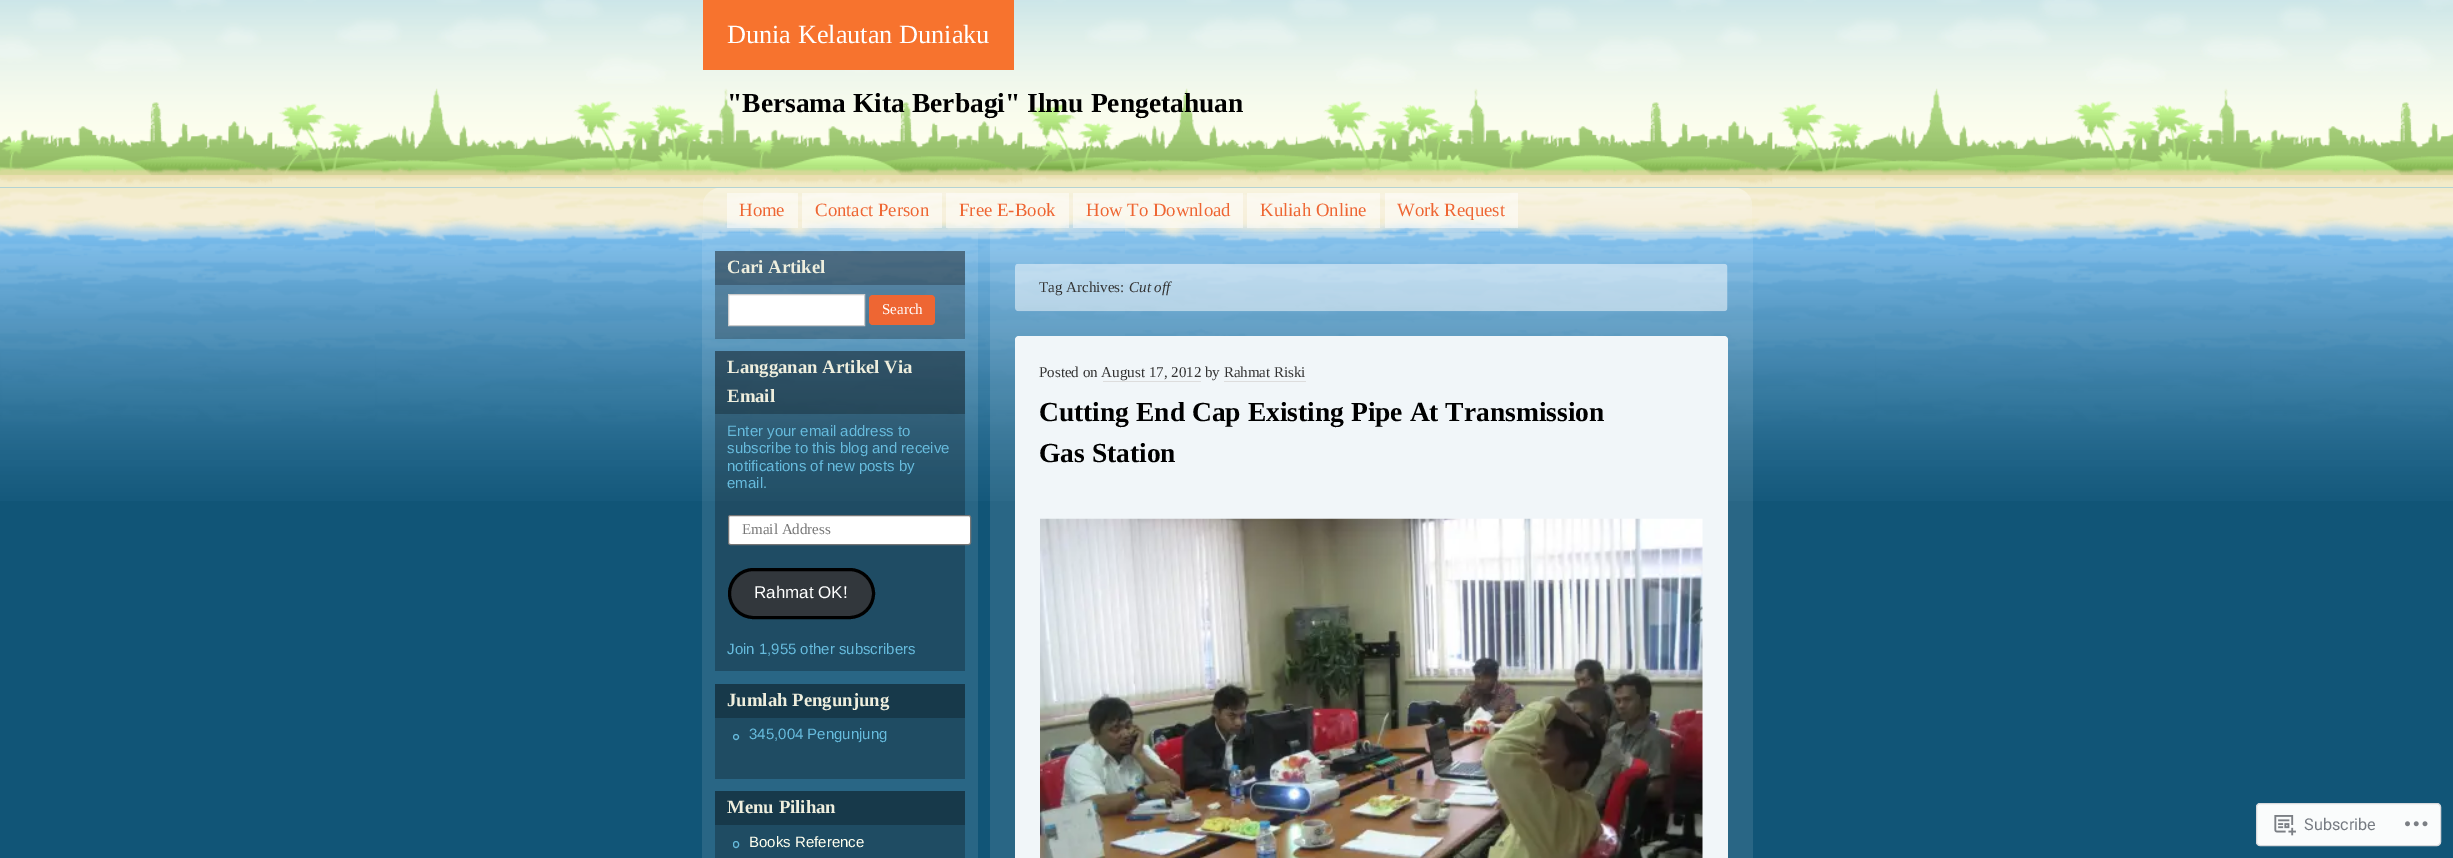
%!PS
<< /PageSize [2453 858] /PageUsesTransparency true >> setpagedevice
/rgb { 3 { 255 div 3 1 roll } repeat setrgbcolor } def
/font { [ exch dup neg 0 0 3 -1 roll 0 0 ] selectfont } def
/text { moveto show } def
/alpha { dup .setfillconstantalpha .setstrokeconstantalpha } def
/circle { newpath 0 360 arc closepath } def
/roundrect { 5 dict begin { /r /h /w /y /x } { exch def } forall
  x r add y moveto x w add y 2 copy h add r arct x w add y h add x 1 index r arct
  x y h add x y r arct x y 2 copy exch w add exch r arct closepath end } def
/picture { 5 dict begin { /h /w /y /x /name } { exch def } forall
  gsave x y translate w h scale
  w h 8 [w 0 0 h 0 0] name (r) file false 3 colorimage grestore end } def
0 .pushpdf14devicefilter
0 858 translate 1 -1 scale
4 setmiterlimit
17 85 119 rgb
0 0 2453 858 rectfill
119 187 221 rgb
0 187 2453 1 rectfill
(img_01.rgb) 0 0 2453 188 picture
247 115 46 rgb
703 0 311 70 rectfill
(img_02.rgb) 0 188 2453 313 picture
(img_03.rgb) 703 188 1049 44 picture
0.5 alpha
255 255 255 rgb
727 193 71 35 rectfill
802 193 140 35 rectfill
946 193 123 35 rectfill
1073 193 170 35 rectfill
1247 193 133 35 rectfill
1385 193 133 35 rectfill
0.1 alpha
702 233 276 625 rectfill
0.25 alpha
0 0 0 rgb
715 251 250 88 rectfill
715 251 250 34 rectfill
1 alpha
255 255 255 rgb
728.5 294.5 moveto 136 0 rlineto 0 31 rlineto -136 0 rlineto closepath gsave fill grestore
204 204 204 rgb
stroke
238 102 51 rgb
869 295 66 30 4 roundrect fill
0.25 alpha
0 0 0 rgb
715 351 250 320 rectfill
715 351 250 63 rectfill
1 alpha
255 255 255 rgb
728.5 515.5 242 29 2 roundrect gsave fill grestore
118 118 118 rgb
stroke
50 55 60 rgb
729.5 569.5 144 48 24 roundrect gsave fill grestore
0 0 0 rgb
3 setlinewidth
stroke
31 76 99 rgb
715 718 250 61 rectfill
23 57 74 rgb
715 684 250 34 rectfill
102 187 221 rgb
1 setlinewidth
736 737 2.5 circle stroke
31 76 99 rgb
715 825 250 33 rectfill
23 57 74 rgb
715 791 250 34 rectfill
102 187 221 rgb
733.5 841.5 5 6 2.5 roundrect stroke
0.1 alpha
255 255 255 rgb
990 233 763 625 rectfill
1 alpha
(img_04.rgb) 1015 263 713 49 picture
241 246 249 rgb
1015 336 713 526 4 roundrect fill
221 221 221 rgb
1103 381 98 1 rectfill
1224 381 82 1 rectfill
(img_05.rgb) 1040 518 663 340 picture
250 252 252 rgb
2256.5 803.5 184 42 3.5 roundrect gsave fill grestore
216 217 220 rgb
stroke
(img_06.rgb) 2274 815 22 21 picture
(img_07.rgb) 2405 821 23 6 picture
/LiberationSerif-Regular 26.25 font
255 255 255 rgb
(Dunia Kelautan Duniaku) 727 43 text
/LiberationSerif-Bold 27.5 font
0 0 0 rgb
("Bersama Kita Berbagi" Ilmu Pengetahuan) 727 112 text
/LiberationSerif-Regular 18.75 font
238 102 51 rgb
(Home) 739 216 text
(Contact Person) 815 216 text
(Free E-Book) 959 216 text
(How To Download) 1086 216 text
(Kuliah Online) 1260 216 text
(Work Request) 1397 216 text
/LiberationSerif-Bold 18.75 font
238 238 221 rgb
(Cari Artikel) 727 273 text
/LiberationSerif-Regular 15 font
255 255 255 rgb
(Search) 882 314 text
/LiberationSerif-Bold 18.75 font
238 238 221 rgb
(Langganan Artikel Via) 727 373 text
(Email) 727 402 text
/LiberationSans-Regular 15 font
102 187 221 rgb
(Enter your email address to) 727 436 text
(subscribe to this blog and receive) 727 453 text
(notifications of new posts by) 727 471 text
(email.) 727 488 text
/LiberationSerif-Regular 15 font
117 117 117 rgb
(Email Address) 742 534 text
/LiberationSans-Regular 17 font
255 255 255 rgb
(Rahmat OK!) 754 598 text
/LiberationSans-Regular 15 font
102 187 221 rgb
(Join 1,955 other subscribers) 727 654 text
/LiberationSerif-Bold 18.75 font
238 238 221 rgb
(Jumlah Pengunjung) 727 706 text
/LiberationSans-Regular 15 font
102 187 221 rgb
(345,004 Pengunjung) 749 739 text
/LiberationSerif-Bold 18.75 font
238 238 221 rgb
(Menu Pilihan) 727 813 text
/LiberationSans-Regular 15 font
255 255 238 rgb
(Books Reference) 749 847 text
/LiberationSerif-Regular 15 font
51 51 51 rgb
(Tag Archives:) 1039 292 text
/LiberationSerif-Italic 15 font
(Cut off) 1129 292 text
/LiberationSerif-Regular 15 font
(Posted on August 17, 2012 by Rahmat Riski) 1039 377 text
/LiberationSerif-Bold 27.5 font
0 0 0 rgb
(Cutting End Cap Existing Pipe At Transmission) 1039 421 text
(Gas Station) 1039 462 text
/Roboto-Regular 16.25 font
118 123 130 rgb
(Subscribe) 2304 830 text
.poppdf14devicefilter showpage
